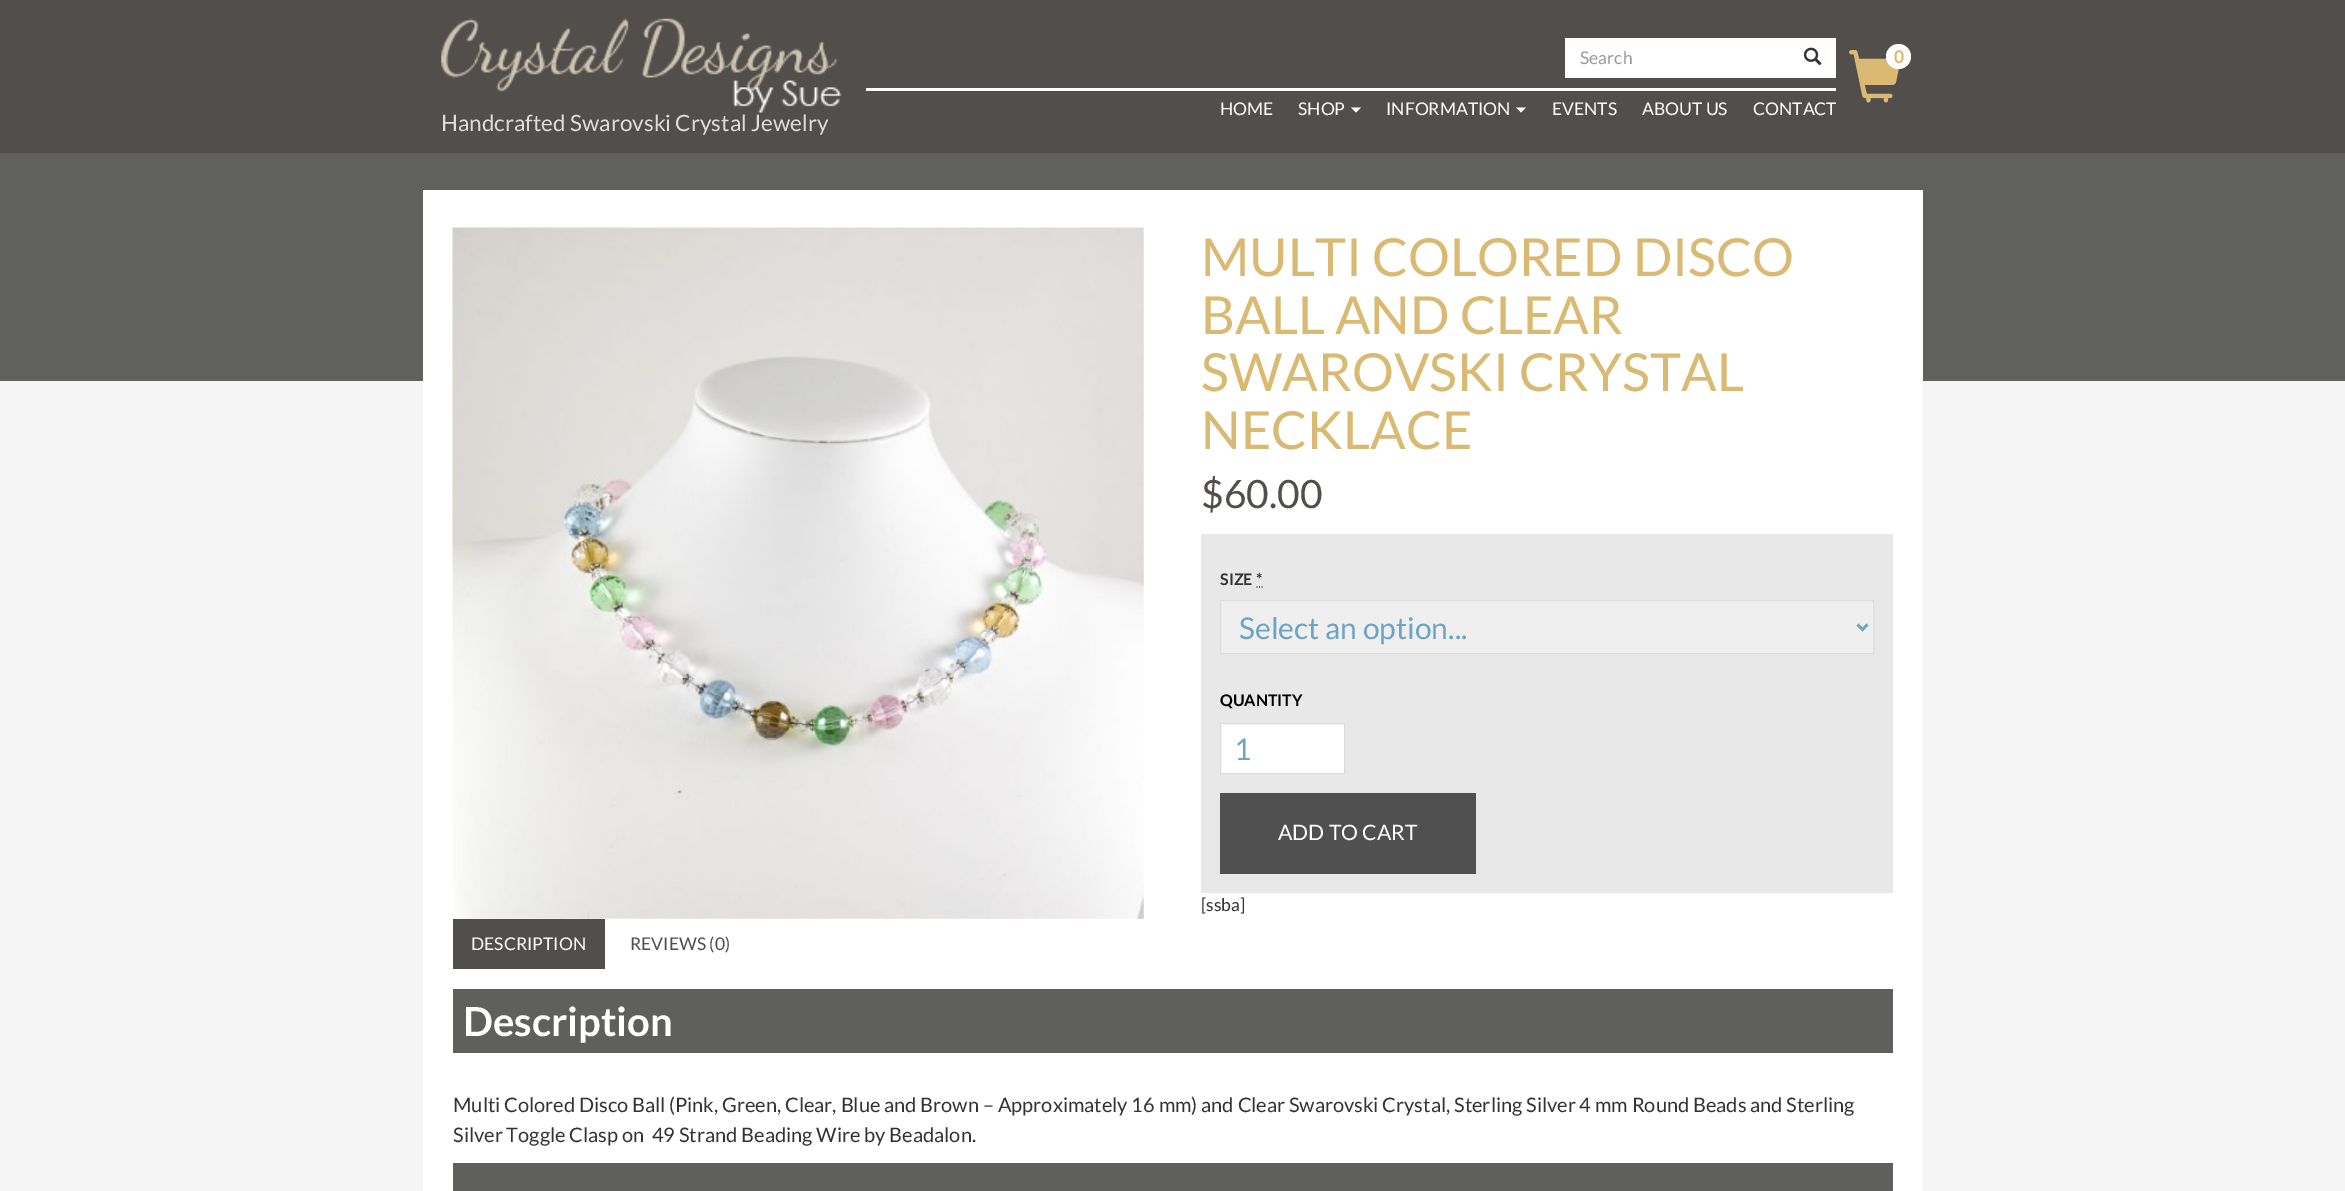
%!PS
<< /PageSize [2345 1191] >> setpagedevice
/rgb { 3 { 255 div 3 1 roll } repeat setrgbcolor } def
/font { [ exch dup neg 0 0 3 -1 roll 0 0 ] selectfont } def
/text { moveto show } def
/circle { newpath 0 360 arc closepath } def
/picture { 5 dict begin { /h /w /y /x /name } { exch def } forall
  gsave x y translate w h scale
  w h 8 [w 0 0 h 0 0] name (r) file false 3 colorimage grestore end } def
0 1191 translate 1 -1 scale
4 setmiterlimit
245 245 245 rgb
0 0 2345 1191 rectfill
81 78 76 rgb
0 0 2345 153 rectfill
255 255 255 rgb
1565 38 271 40 rectfill
(img_01.rgb) 1803 47 19 19 picture
866 88 970 3 rectfill
1351 107.5 moveto 10 0 rlineto -5 5 rlineto closepath fill
1516 107.5 moveto 10 0 rlineto -5 5 rlineto closepath fill
(img_02.rgb) 1849 50 50 53 picture
1898.5 56.5 12.5 circle fill
(img_03.rgb) 441 18 401 95 picture
96 97 94 rgb
0 153 2345 228 rectfill
255 255 255 rgb
423 190 1500 1001 rectfill
(img_04.rgb) 452 227 692 692 picture
232 232 232 rgb
1201 534 692 359 rectfill
51 51 51 rgb
1.2 setlinewidth
1256.5 587 moveto 1 0 rlineto 1259 587 moveto 1 0 rlineto 1261.5 587 moveto 1 0 rlineto stroke
239 239 239 rgb
1220.5 600.5 moveto 653 0 rlineto 0 53 rlineto -653 0 rlineto closepath gsave fill grestore
221 221 221 rgb
1 setlinewidth
stroke
107 164 196 rgb
2.5 setlinewidth
1857.5 624.5 moveto 5 5 rlineto 5 -5 rlineto stroke
255 255 255 rgb
1220.5 723.5 moveto 124 0 rlineto 0 50 rlineto -124 0 rlineto closepath gsave fill grestore
221 221 221 rgb
1 setlinewidth
stroke
80 80 80 rgb
1220 793 256 81 rectfill
81 78 76 rgb
453 919 152 50 rectfill
95 96 93 rgb
453 989 1440 64 rectfill
453 1163 1440 28 rectfill
/Lato-Regular 17.5 font
153 153 153 rgb
(Search) 1580 64 text
255 255 255 rgb
(HOME) 1220 115 text
(SHOP) 1298 115 text
(INFORMATION) 1386 115 text
(EVENTS) 1552 115 text
(ABOUT US) 1642 115 text
(CONTACT) 1753 115 text
/Lato-Bold 17.5 font
218 185 114 rgb
(0) 1894 63 text
/Lato-Regular 22.5 font
221 221 219 rgb
(Handcrafted Swarovski Crystal Jewelry) 441 131 text
/Lato-Regular 52.5 font
218 185 114 rgb
(MULTI COLORED DISCO) 1201 276 text
(BALL AND CLEAR) 1201 334 text
(SWAROVSKI CRYSTAL) 1201 391 text
(NECKLACE) 1201 449 text
/Lato-Regular 39 font
81 78 76 rgb
($60.00) 1201 508 text
/Lato-Bold 16 font
51 51 51 rgb
(SIZE *) 1220 585 text
/Lato-Regular 30 font
107 164 196 rgb
(Select an option...) 1239 639 text
/Lato-Bold 16 font
0 0 0 rgb
(QUANTITY) 1220 706 text
/Lato-Regular 30 font
107 164 196 rgb
(1) 1234 760 text
/Lato-Regular 21.25 font
255 255 255 rgb
(ADD TO CART) 1278 840 text
/Lato-Regular 17.5 font
51 51 51 rgb
([ssba]) 1201 911 text
255 255 255 rgb
(DESCRIPTION) 471 950 text
81 78 76 rgb
(REVIEWS \(0\)) 630 950 text
/Lato-Bold 40 font
255 255 255 rgb
(Description) 463 1036 text
/Lato-Regular 20 font
51 51 51 rgb
(Multi Colored Disco Ball \(Pink, Green, Clear, Blue and Brown – Approximately 16 mm\) and Clear Swarovski Crystal, Sterling Silver 4 mm Round Beads and Sterling) 453 1112 text
(Silver Toggle Clasp on  49 Strand Beading Wire by Beadalon.) 453 1142 text
showpage
